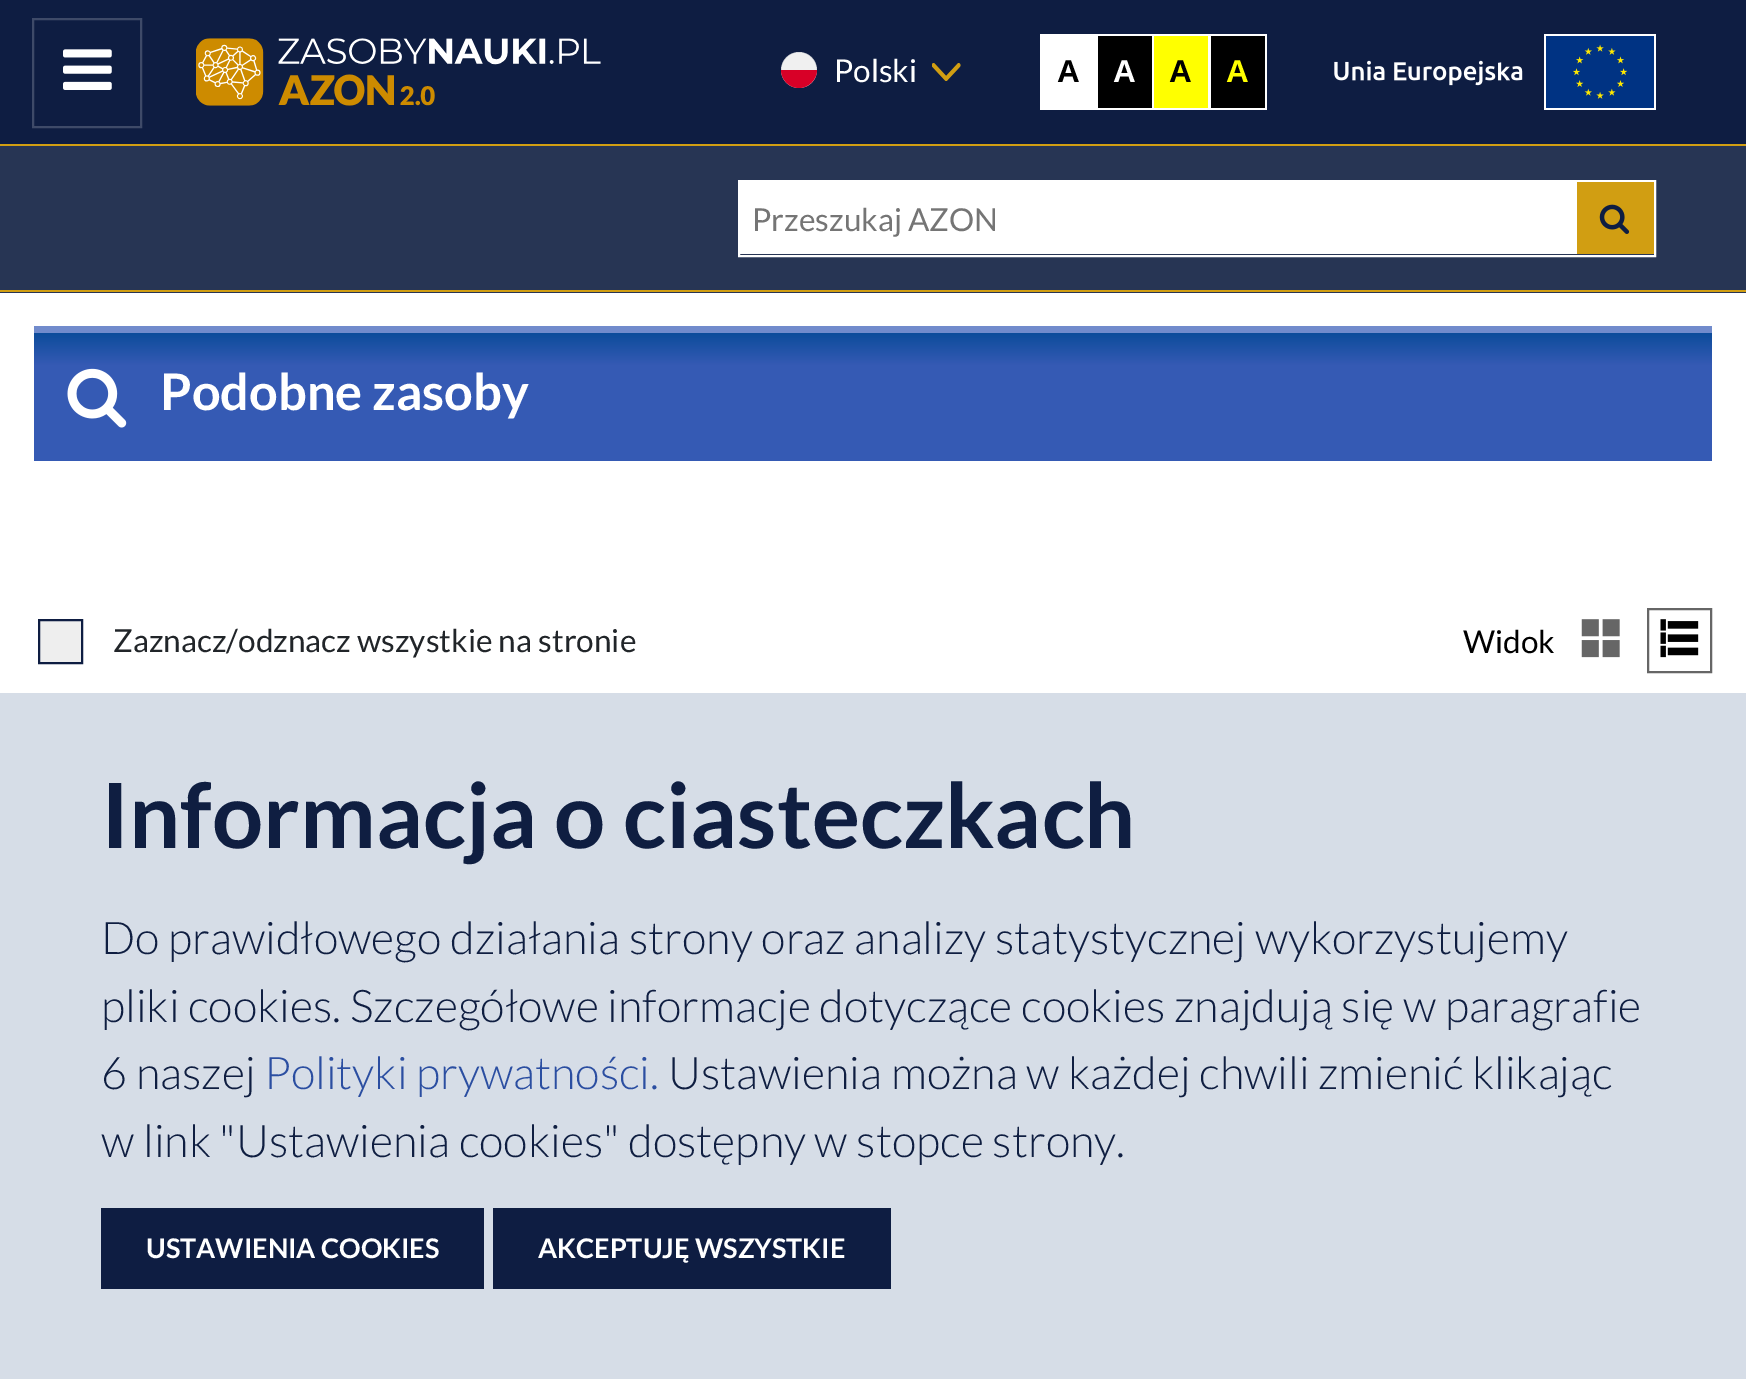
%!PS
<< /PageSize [1746 1379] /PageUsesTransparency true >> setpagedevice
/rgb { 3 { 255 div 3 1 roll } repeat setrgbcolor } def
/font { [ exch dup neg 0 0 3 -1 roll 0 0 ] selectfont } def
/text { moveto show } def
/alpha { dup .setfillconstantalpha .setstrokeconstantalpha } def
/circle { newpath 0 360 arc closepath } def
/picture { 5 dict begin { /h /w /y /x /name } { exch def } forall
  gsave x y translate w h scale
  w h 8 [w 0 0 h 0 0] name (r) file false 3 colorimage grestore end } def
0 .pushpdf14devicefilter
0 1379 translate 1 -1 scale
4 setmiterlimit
255 255 255 rgb
0 0 1746 1379 rectfill
14 29 66 rgb
0 0 1746 144 rectfill
209 158 18 rgb
0 144 1746 2 rectfill
62 74 104 rgb
2 setlinewidth
33 19 108 108 rectstroke
(img_01.rgb) 63 49 49 41 picture
(img_02.rgb) 196 38 405 68 picture
240 240 240 rgb
799 70 18 circle fill
0.2 alpha
15 30 65 rgb
4.5 setlinewidth
799 70 20 circle stroke
1 alpha
216 0 39 rgb
817 70 moveto 0 9.5 -8.5 18 -18 18 rcurveto -10 0 -18 -8.5 -18 -18 rcurveto fill
(img_03.rgb) 932 63 29 18 picture
255 255 255 rgb
1040 34 227 76 rectfill
0 0 0 rgb
1098 36 54 72 rectfill
255 255 0 rgb
1154 36 54 72 rectfill
0 0 0 rgb
1211 36 54 72 rectfill
(img_04.rgb) 1334 34 322 76 picture
39 53 84 rgb
0 146 1746 147 rectfill
209 158 18 rgb
0 290 1746 2 rectfill
255 255 255 rgb
2 setlinewidth
739 181 916 75 rectstroke
740 182 837 72 rectfill
209 158 18 rgb
1577 182 77 72 rectfill
(img_05.rgb) 1599 204 31 30 picture
gsave 34 333 moveto 1678 0 rlineto 0 128 rlineto -1678 0 rlineto closepath clip newpath
<< /ShadingType 2 /ColorSpace /DeviceRGB /Coords [873 333 873 461] /Extend [true true] /Function << /FunctionType 3 /Domain [0 1] /Functions [<< /FunctionType 2 /Domain [0 1] /C0 [0.047 0.298 0.608] /C1 [0.208 0.353 0.706] /N 1 >> << /FunctionType 2 /Domain [0 1] /C0 [0.208 0.353 0.706] /C1 [0.208 0.353 0.706] /N 1 >>] /Bounds [0.25] /Encode [0 1 0 1] >> >> shfill grestore
113 139 204 rgb
34 326 1678 7 rectfill
(img_06.rgb) 67 368 60 60 picture
238 238 238 rgb
39 620 moveto 43 0 rlineto 0 43 rlineto -43 0 rlineto closepath gsave fill grestore
14 29 66 rgb
stroke
(img_07.rgb) 1581 619 39 39 picture
102 102 102 rgb
1648 609 63 63 rectstroke
(img_08.rgb) 1660 619 39 39 picture
214 221 231 rgb
0 693 1746 686 rectfill
14 29 66 rgb
101 1208 383 81 rectfill
493 1208 398 81 rectfill
/Lato-Regular 31.5 font
255 255 255 rgb
(Polski) 834 82 text
/LiberationSans-Bold 31.5 font
0 0 0 rgb
(A) 1057 82 text
255 255 255 rgb
(A) 1113 82 text
0 0 0 rgb
(A) 1169 82 text
255 255 0 rgb
(A) 1226 82 text
/Lato-Regular 31.6 font
117 117 117 rgb
(Przeszukaj AZON) 752 231 text
/Lato-Bold 50.5 font
255 255 255 rgb
(Podobne zasoby) 160 410 text
/Lato-Regular 31.6 font
33 37 41 rgb
(Zaznacz/odznacz wszystkie na stronie) 113 652 text
/Lato-Regular 31.5 font
0 0 0 rgb
(Widok) 1463 653 text
/Lato-Bold 90 font
15 30 65 rgb
(Informacja o ciasteczkach) 101 848 text
/Lato-Light 45 font
(Do prawidłowego działania strony oraz analizy statystycznej wykorzystujemy) 101 954 text
(pliki cookies. Szczegółowe informacje dotyczące cookies znajdują się w paragrafie) 101 1022 text
(6 naszej) 101 1089 text
43 78 161 rgb
(Polityki prywatności.) 264 1089 text
15 30 65 rgb
(Ustawienia można w każdej chwili zmienić klikając) 668 1089 text
(w link "Ustawienia cookies" dostępny w stopce strony.) 101 1157 text
/Lato-Bold 27 font
255 255 255 rgb
(USTAWIENIA COOKIES) 146 1258 text
(AKCEPTUJĘ WSZYSTKIE) 538 1258 text
.poppdf14devicefilter showpage
